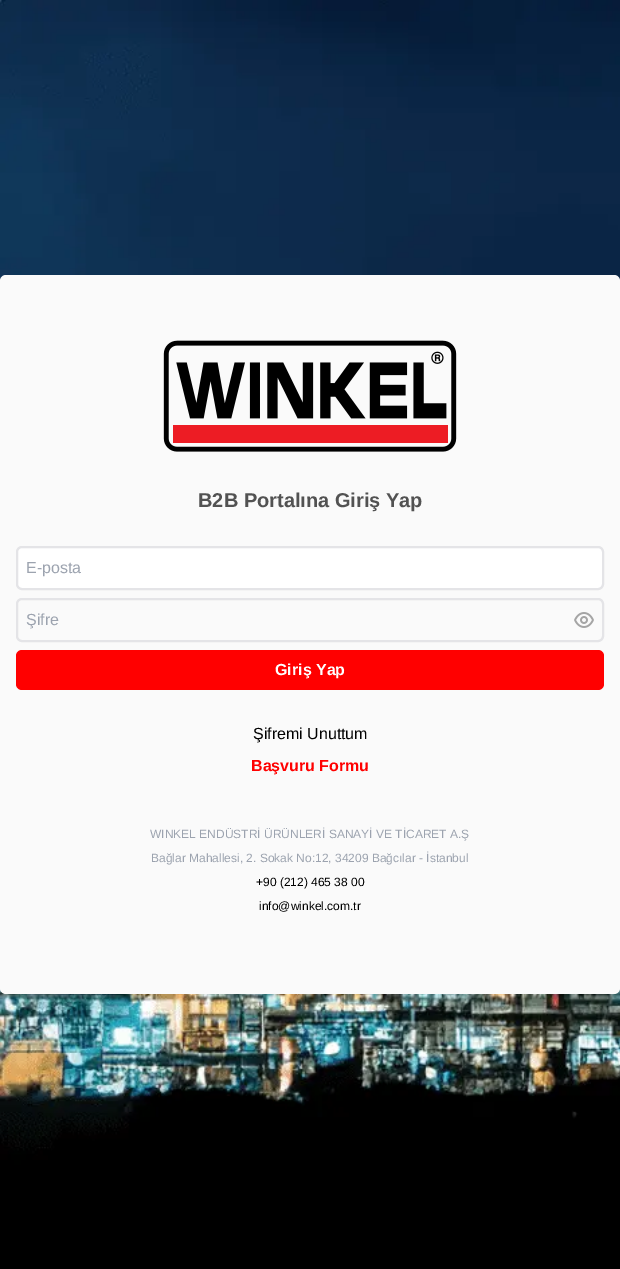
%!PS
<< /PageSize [620 1269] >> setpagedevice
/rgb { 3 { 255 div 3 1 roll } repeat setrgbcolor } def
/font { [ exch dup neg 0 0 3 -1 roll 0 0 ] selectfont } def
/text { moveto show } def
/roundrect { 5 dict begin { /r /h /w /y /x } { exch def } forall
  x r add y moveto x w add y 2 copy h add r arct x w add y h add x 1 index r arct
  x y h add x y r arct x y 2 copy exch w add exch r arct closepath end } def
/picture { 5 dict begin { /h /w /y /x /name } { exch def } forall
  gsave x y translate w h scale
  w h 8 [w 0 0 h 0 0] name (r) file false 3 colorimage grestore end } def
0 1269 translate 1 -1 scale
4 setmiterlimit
255 255 255 rgb
0 0 620 1269 rectfill
(img_01.rgb) 0 0 620 1269 picture
250 250 250 rgb
0 275 620 719 6 roundrect fill
(img_02.rgb) 163 340 294 112 picture
255 255 255 rgb
17 547 586 42 5 roundrect gsave fill grestore
228 228 231 rgb
2 setlinewidth
stroke
17 599 586 42 5 roundrect stroke
(img_03.rgb) 574 612 20 16 picture
255 0 0 rgb
16 650 588 40 6 roundrect fill
/LiberationSans-Bold 20 font
82 82 82 rgb
(B2B Portalına Giriş Yap) 198 507 text
/LiberationSans-Regular 16 font
156 163 175 rgb
(E-posta) 26 573 text
(Şifre) 26 625 text
/LiberationSans-Bold 16 font
255 255 255 rgb
(Giriş Yap) 275 675 text
/LiberationSans-Regular 16 font
0 0 0 rgb
(Şifremi Unuttum) 253 739 text
/LiberationSans-Bold 16 font
255 0 0 rgb
(Başvuru Formu) 251 771 text
/LiberationSans-Regular 12 font
156 163 175 rgb
(WINKEL ENDÜSTRİ ÜRÜNLERİ SANAYİ VE TİCARET A.Ş) 150 838 text
(Bağlar Mahallesi, 2. Sokak No:12, 34209 Bağcılar - İstanbul) 151 862 text
0 0 0 rgb
(+90 \(212\) 465 38 00) 256 886 text
(info@winkel.com.tr) 259 910 text
showpage
